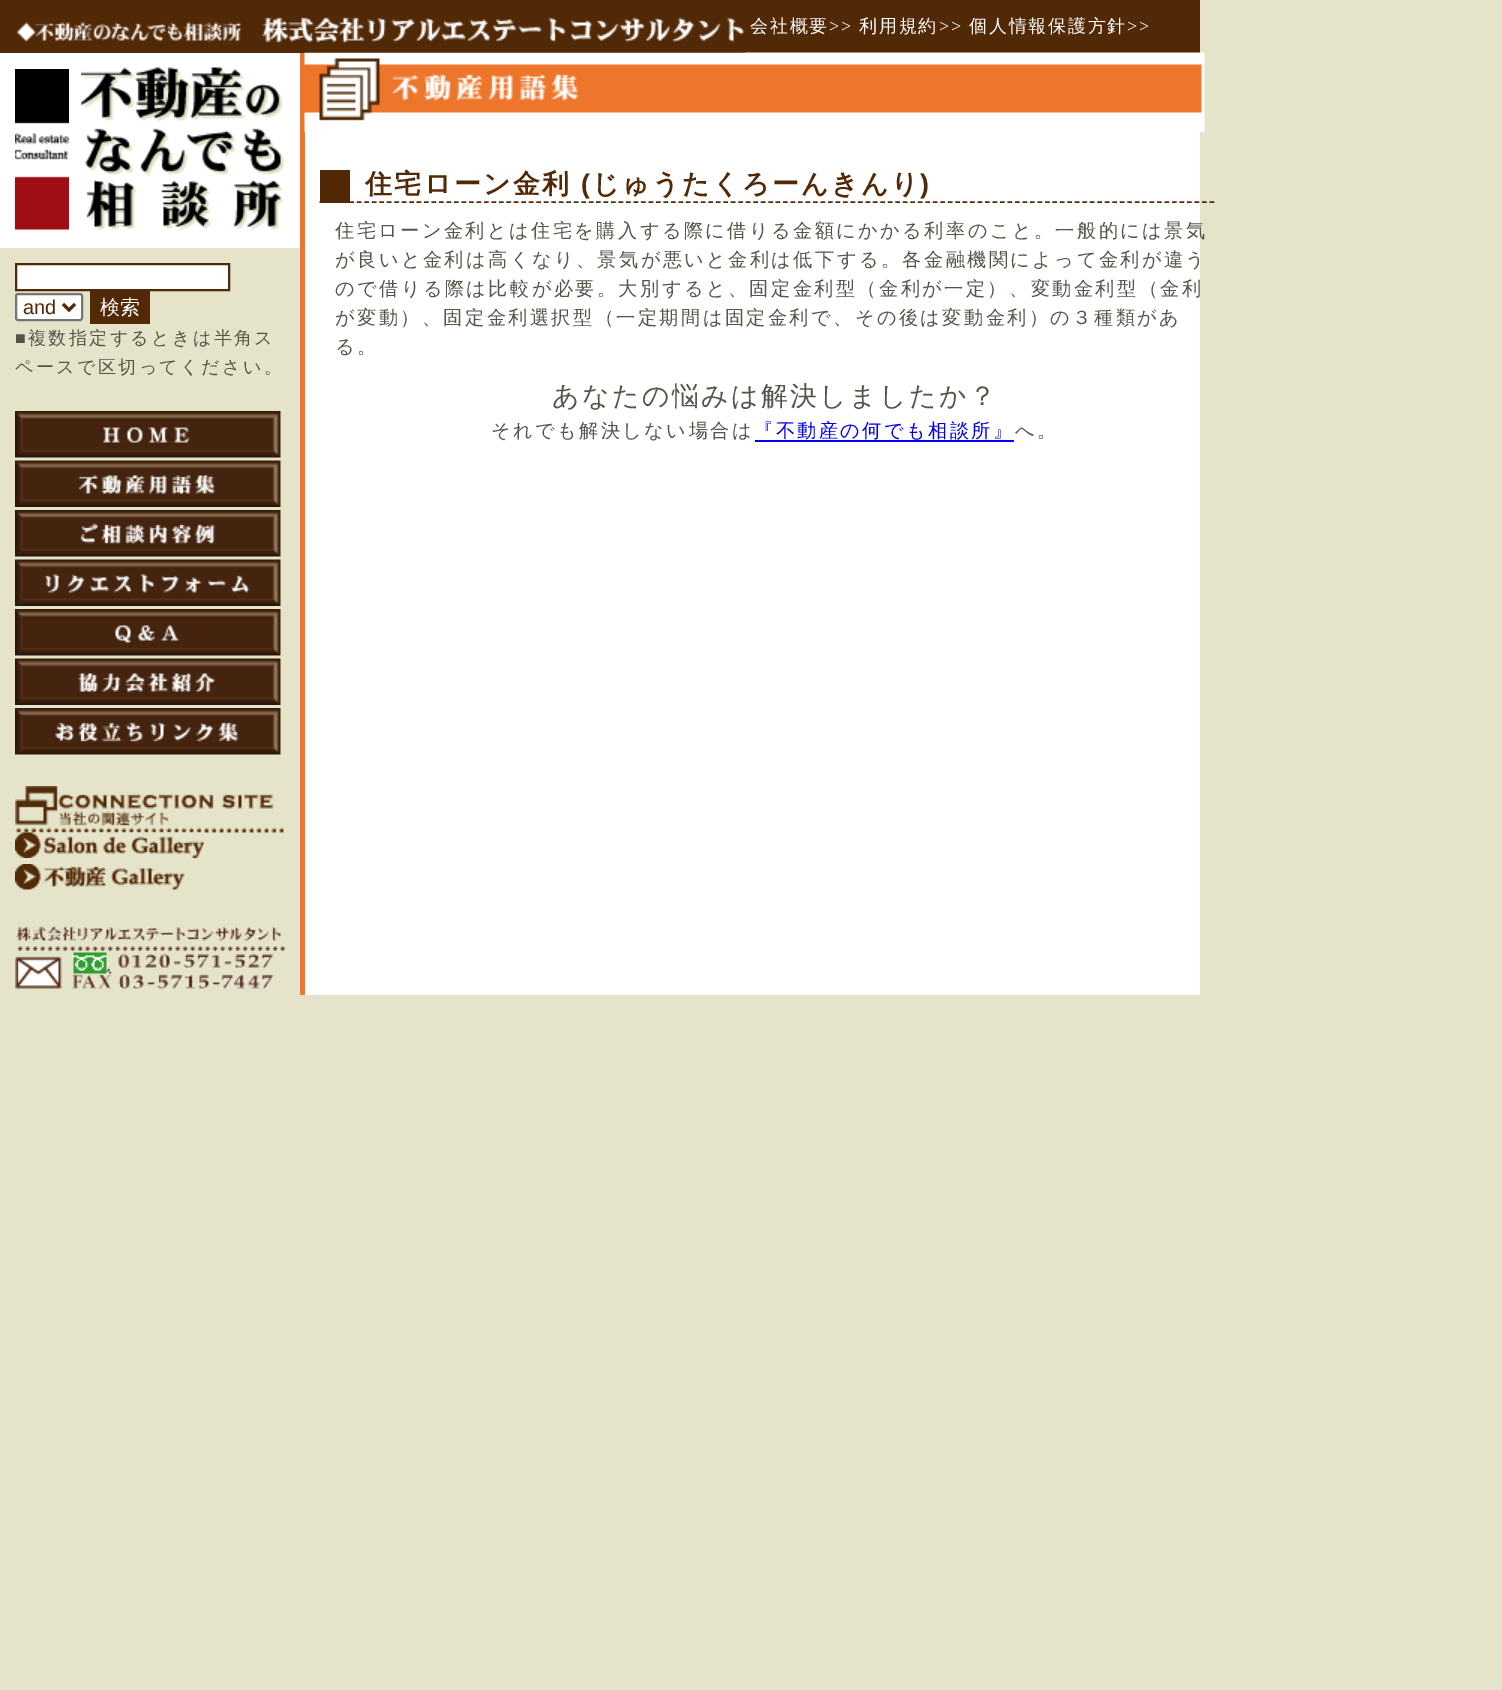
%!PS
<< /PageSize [1502 1690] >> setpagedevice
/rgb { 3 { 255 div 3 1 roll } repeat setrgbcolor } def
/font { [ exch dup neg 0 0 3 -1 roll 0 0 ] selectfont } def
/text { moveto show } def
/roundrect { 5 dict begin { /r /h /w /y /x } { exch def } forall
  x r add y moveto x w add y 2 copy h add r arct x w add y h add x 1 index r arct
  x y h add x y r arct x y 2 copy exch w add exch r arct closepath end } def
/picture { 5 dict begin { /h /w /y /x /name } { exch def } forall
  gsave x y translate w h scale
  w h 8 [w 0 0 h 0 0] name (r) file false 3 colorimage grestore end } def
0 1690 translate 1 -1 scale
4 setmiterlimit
229 228 202 rgb
0 0 1502 1690 rectfill
82 41 7 rgb
0 0 1200 53 rectfill
238 118 43 rgb
300 53 5 942 rectfill
(img_16.rgb) 304 52 901 80 picture
(img_01.rgb) 16 17 730 36 picture
255 255 255 rgb
0 53 300 195 rectfill
(img_02.rgb) 15 69 54 161 picture
(img_03.rgb) 81 67 203 163 picture
16 264 moveto 213 0 rlineto 0 26 rlineto -213 0 rlineto closepath gsave fill grestore
82 41 7 rgb
2 setlinewidth
stroke
255 255 255 rgb
16 294 66 26 2 roundrect gsave fill grestore
118 118 118 rgb
stroke
82 41 7 rgb
3 setlinewidth
63 304 moveto 6 6 rlineto 6 -6 rlineto stroke
90 291 60 33 rectfill
(img_04.rgb) 15 411 266 47 picture
(img_05.rgb) 15 460 266 47 picture
(img_06.rgb) 15 510 266 47 picture
(img_07.rgb) 15 559 266 47 picture
(img_08.rgb) 15 609 266 47 picture
(img_09.rgb) 15 658 266 47 picture
(img_10.rgb) 15 708 266 47 picture
(img_11.rgb) 15 786 269 47 picture
(img_12.rgb) 15 832 189 26 picture
(img_13.rgb) 15 864 170 26 picture
(img_14.rgb) 16 926 269 25 picture
(img_15.rgb) 15 952 259 37 picture
255 255 255 rgb
305 132 895 863 rectfill
82 41 7 rgb
1.5 setlinewidth
[4.5 2.98] 0 setdash
319.5 202 moveto 895.5 0 rlineto stroke
320 170 30 33 rectfill
0 0 238 rgb
755 440 259 2 rectfill
/WenQuanYiZenHei-Medium 18 font
255 255 255 rgb
750 32 moveto 1.75 0 (会社概要) ashow
/LiberationSerif-Regular 18 font
829 32 moveto 1.75 0 (>>) ashow
/WenQuanYiZenHei-Medium 18 font
859 32 moveto 1.75 0 (利用規約) ashow
/LiberationSerif-Regular 18 font
939 32 moveto 1.75 0 (>>) ashow
/WenQuanYiZenHei-Medium 18 font
969 32 moveto 1.75 0 (個人情報保護方針) ashow
/LiberationSerif-Regular 18 font
1127 32 moveto 1.75 0 (>>) ashow
/LiberationSans-Regular 20 font
82 41 7 rgb
(and) 23 314 text
/WenQuanYiZenHei-Medium 20 font
255 255 255 rgb
(検索) 100 314 text
/LiberationSerif-Regular 18 font
86 84 73 rgb
15 344 moveto 2.4 0 (■) ashow
/WenQuanYiZenHei-Medium 18 font
28 344 moveto 2.4 0 (複数指定するときは半角ス) ashow
15 373 moveto 2.4 0 (ペースで区切ってください。) ashow
/WenQuanYiZenHei-Bold 26.9 font
82 41 7 rgb
365 193 moveto 2.4 0 (住宅ローン金利) ashow
/LiberationSans-Bold 26.9 font
581 193 moveto 2.4 0 (\() ashow
/WenQuanYiZenHei-Bold 26.9 font
592 193 moveto 2.4 0 (じゅうたくろーんきんり) ashow
/LiberationSans-Bold 26.9 font
920 193 moveto 2.4 0 (\)) ashow
/WenQuanYiZenHei-Medium 19.2 font
86 84 73 rgb
335 237 moveto 2.4 0 (住宅ローン金利とは住宅を購入する際に借りる金額にかかる利率のこと。一般的には景気) ashow
335 266 moveto 2.4 0 (が良いと金利は高くなり、景気が悪いと金利は低下する。各金融機関によって金利が違う) ashow
335 295 moveto 2.4 0 (ので借りる際は比較が必要。大別すると、固定金利型（金利が一定）、変動金利型（金利) ashow
335 324 moveto 2.4 0 (が変動）、固定金利選択型（一定期間は固定金利で、その後は変動金利）の３種類があ) ashow
335 353 moveto 2.4 0 (る。) ashow
/WenQuanYiZenHei-Medium 26.9 font
552 405 moveto 2.4 0 (あなたの悩みは解決しましたか？) ashow
/WenQuanYiZenHei-Medium 19.2 font
491 437 moveto 2.4 0 (それでも解決しない場合は) ashow
0 0 238 rgb
754 437 moveto 2.4 0 (『不動産の何でも相談所』) ashow
86 84 73 rgb
1015 437 moveto 2.4 0 (へ。) ashow
showpage
